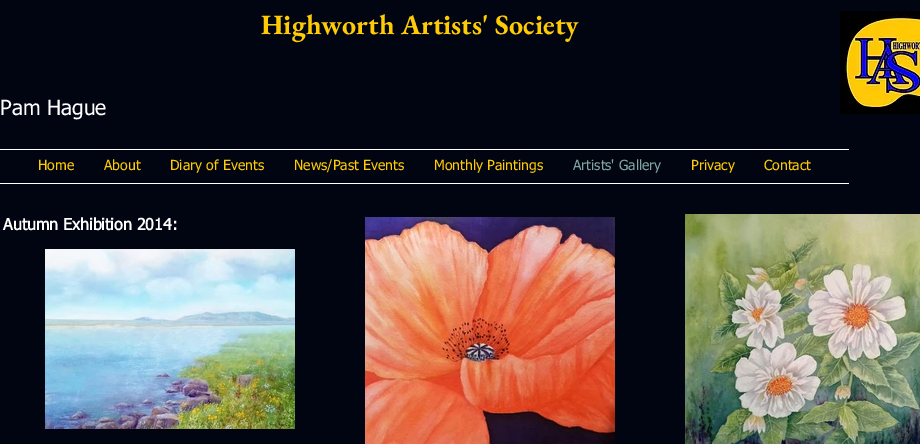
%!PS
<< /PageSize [920 444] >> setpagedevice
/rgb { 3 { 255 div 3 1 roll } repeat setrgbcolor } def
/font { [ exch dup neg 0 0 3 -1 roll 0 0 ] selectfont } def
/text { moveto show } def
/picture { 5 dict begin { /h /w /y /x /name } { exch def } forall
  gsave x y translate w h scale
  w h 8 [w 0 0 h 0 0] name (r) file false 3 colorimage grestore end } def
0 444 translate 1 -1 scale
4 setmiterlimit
1 5 17 rgb
0 0 920 444 rectfill
(img_01.rgb) 840 11 80 103 picture
255 255 255 rgb
0 149 849 1 rectfill
0 183 849 1 rectfill
(img_02.rgb) 45 249 250 180 picture
(img_03.rgb) 365 217 250 227 picture
(img_04.rgb) 685 214 235 230 picture
/EBGaramond-Bold 28 font
255 203 5 rgb
(Highworth Artists' Society) 261 34 text
/tahoma-Regular 14 font
(Home) 38 170 text
(About) 104 170 text
(Diary of Events) 170 170 text
(News/Past Events) 294 170 text
(Monthly Paintings) 434 170 text
129 165 159 rgb
(Artists' Gallery) 573 170 text
255 203 5 rgb
(Privacy) 691 170 text
(Contact) 764 170 text
/tahoma-Bold 16 font
255 255 255 rgb
(Autumn Exhibition 2014:) 3 230 text
/tahoma-Regular 21 font
(Pam Hague) 0 115 text
showpage
